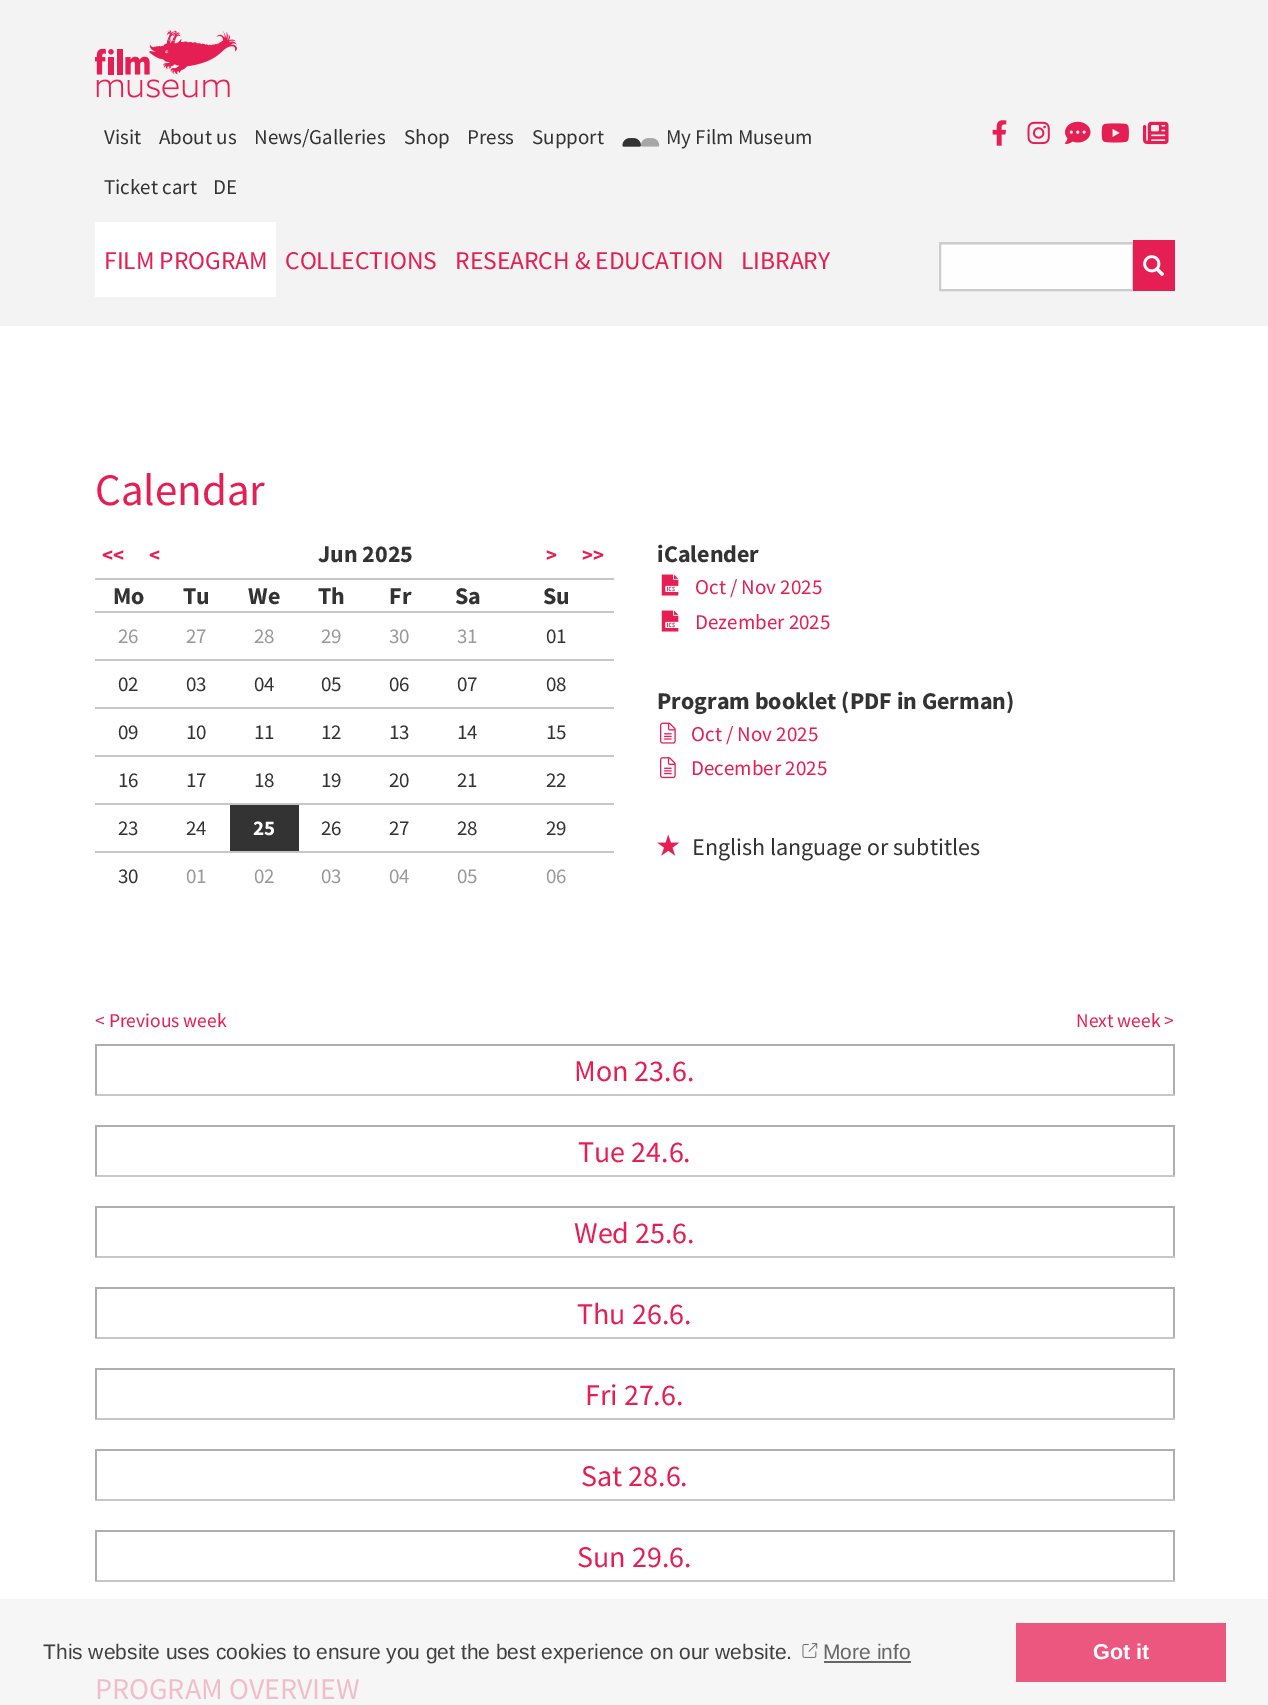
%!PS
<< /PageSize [1268 1705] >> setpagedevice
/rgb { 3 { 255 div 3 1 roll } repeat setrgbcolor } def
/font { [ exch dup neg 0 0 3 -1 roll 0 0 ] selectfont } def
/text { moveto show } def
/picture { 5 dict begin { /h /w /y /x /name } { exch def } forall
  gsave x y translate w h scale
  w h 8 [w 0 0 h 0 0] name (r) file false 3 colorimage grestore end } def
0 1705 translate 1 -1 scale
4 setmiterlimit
255 255 255 rgb
0 0 1268 1705 rectfill
246 246 246 rgb
0 1599 1268 106 rectfill
243 243 243 rgb
0 0 1268 326 rectfill
(img_01.rgb) 95 30 142 68 picture
(img_02.rgb) 622 138 19 9 picture
(img_03.rgb) 622 138 38 9 picture
(img_04.rgb) 992 120 15 26 picture
(img_05.rgb) 1027 121 23 24 picture
(img_06.rgb) 1065 121 26 24 picture
(img_07.rgb) 1101 123 28 20 picture
(img_08.rgb) 1143 121 26 24 picture
255 255 255 rgb
95 222 181 75 rectfill
254 254 254 rgb
941 245 191 44 rectfill
235 235 235 rgb
941 244 192 1 rectfill
204 204 204 rgb
2 setlinewidth
940 243 193 47 rectstroke
229 31 84 rgb
1133 240 42 51 rectfill
(img_09.rgb) 1143 255 22 22 picture
199 199 199 rgb
95 578 519 2 rectfill
95 611 519 2 rectfill
95 659 519 2 rectfill
95 707 519 2 rectfill
95 755 519 2 rectfill
95 803 519 2 rectfill
95 851 519 2 rectfill
51 51 51 rgb
230 805 69 46 rectfill
(img_10.rgb) 661 574 18 22 picture
(img_10.rgb) 661 610 18 22 picture
(img_11.rgb) 660 722 16 22 picture
(img_12.rgb) 660 757 16 22 picture
(img_13.rgb) 657 834 23 22 picture
174 174 174 rgb
95 1044 1080 2 rectfill
1173 1044 2 51 rectfill
199 199 199 rgb
95 1094 1080 2 rectfill
174 174 174 rgb
95 1044 2 51 rectfill
95 1125 1080 2 rectfill
1173 1125 2 51 rectfill
199 199 199 rgb
95 1175 1080 2 rectfill
174 174 174 rgb
95 1125 2 51 rectfill
95 1206 1080 2 rectfill
1173 1206 2 51 rectfill
199 199 199 rgb
95 1256 1080 2 rectfill
174 174 174 rgb
95 1206 2 51 rectfill
95 1287 1080 2 rectfill
1173 1287 2 51 rectfill
199 199 199 rgb
95 1337 1080 2 rectfill
174 174 174 rgb
95 1287 2 51 rectfill
95 1368 1080 2 rectfill
1173 1368 2 51 rectfill
199 199 199 rgb
95 1418 1080 2 rectfill
174 174 174 rgb
95 1368 2 51 rectfill
95 1449 1080 2 rectfill
1173 1449 2 51 rectfill
199 199 199 rgb
95 1499 1080 2 rectfill
174 174 174 rgb
95 1449 2 51 rectfill
95 1530 1080 2 rectfill
1173 1530 2 51 rectfill
199 199 199 rgb
95 1580 1080 2 rectfill
174 174 174 rgb
95 1530 2 51 rectfill
(img_14.rgb) 802 1643 16 15 picture
102 102 102 rgb
824 1661 87 2 rectfill
236 87 127 rgb
1016 1623 210 59 rectfill
/SourceSansPro-Regular 21 font
51 51 51 rgb
(Visit) 104 144 text
(About us) 159 144 text
(News/Galleries) 254 144 text
(Shop) 404 144 text
(Press) 467 144 text
(Support) 532 144 text
(My Film Museum) 666 144 text
(Ticket cart) 104 194 text
(DE) 213 194 text
/SourceSansPro-Regular 25.5 font
229 31 84 rgb
(FILM PROGRAM) 104 269 text
(COLLECTIONS) 285 269 text
(RESEARCH & EDUCATION) 455 269 text
(LIBRARY) 741 269 text
/SourceSansPro-Regular 45 font
(Calendar) 95 505 text
/SourceSansPro-Bold 21 font
(<<) 102 562 text
(<) 149 562 text
/SourceSansPro-Bold 24 font
51 51 51 rgb
(Jun 2025) 318 562 text
/SourceSansPro-Bold 21 font
229 31 84 rgb
(>) 546 562 text
(>>) 582 562 text
/SourceSansPro-Bold 24 font
51 51 51 rgb
(Mo) 113 604 text
(Tu) 183 604 text
(We) 248 604 text
(Th) 318 604 text
(Fr) 389 604 text
(Sa) 455 604 text
(Su) 543 604 text
/SourceSansPro-Regular 21 font
153 153 153 rgb
(26) 118 643 text
(27) 186 643 text
(28) 254 643 text
(29) 321 643 text
(30) 389 643 text
(31) 457 643 text
51 51 51 rgb
(01) 546 643 text
(02) 118 691 text
(03) 186 691 text
(04) 254 691 text
(05) 321 691 text
(06) 389 691 text
(07) 457 691 text
(08) 546 691 text
(09) 118 739 text
(10) 186 739 text
(11) 254 739 text
(12) 321 739 text
(13) 389 739 text
(14) 457 739 text
(15) 546 739 text
(16) 118 787 text
(17) 186 787 text
(18) 254 787 text
(19) 321 787 text
(20) 389 787 text
(21) 457 787 text
(22) 546 787 text
(23) 118 835 text
(24) 186 835 text
/SourceSansPro-Bold 21 font
255 255 255 rgb
(25) 253 835 text
/SourceSansPro-Regular 21 font
51 51 51 rgb
(26) 321 835 text
(27) 389 835 text
(28) 457 835 text
(29) 546 835 text
(30) 118 883 text
153 153 153 rgb
(01) 186 883 text
(02) 254 883 text
(03) 321 883 text
(04) 389 883 text
(05) 457 883 text
(06) 546 883 text
/SourceSansPro-Bold 24 font
51 51 51 rgb
(iCalender) 657 562 text
/SourceSansPro-Regular 21 font
229 31 84 rgb
(Oct / Nov 2025) 695 594 text
(Dezember 2025) 695 629 text
/SourceSansPro-Bold 24 font
51 51 51 rgb
(Program booklet \(PDF in German\)) 657 709 text
/SourceSansPro-Regular 21 font
229 31 84 rgb
(Oct / Nov 2025) 691 741 text
(December 2025) 691 775 text
/SourceSansPro-Regular 24 font
51 51 51 rgb
(English language or subtitles) 692 855 text
/SourceSansPro-Regular 19.5 font
229 31 84 rgb
(< Previous week) 95 1027 text
(Next week >) 1076 1027 text
/SourceSansPro-Regular 30 font
(Mon 23.6.) 574 1081 text
(Tue 24.6.) 578 1162 text
(Wed 25.6.) 574 1243 text
(Thu 26.6.) 577 1324 text
(Fri 27.6.) 585 1405 text
(Sat 28.6.) 581 1486 text
(Sun 29.6.) 577 1567 text
240 190 203 rgb
(PROGRAM OVERVIEW) 95 1699 text
/LiberationSans-Regular 21 font
64 64 64 rgb
(This website uses cookies to ensure you get the best experience on our website.) 43 1659 text
102 102 102 rgb
(More info) 823 1659 text
/LiberationSans-Bold 21.5 font
255 255 255 rgb
(Got it) 1093 1659 text
showpage
